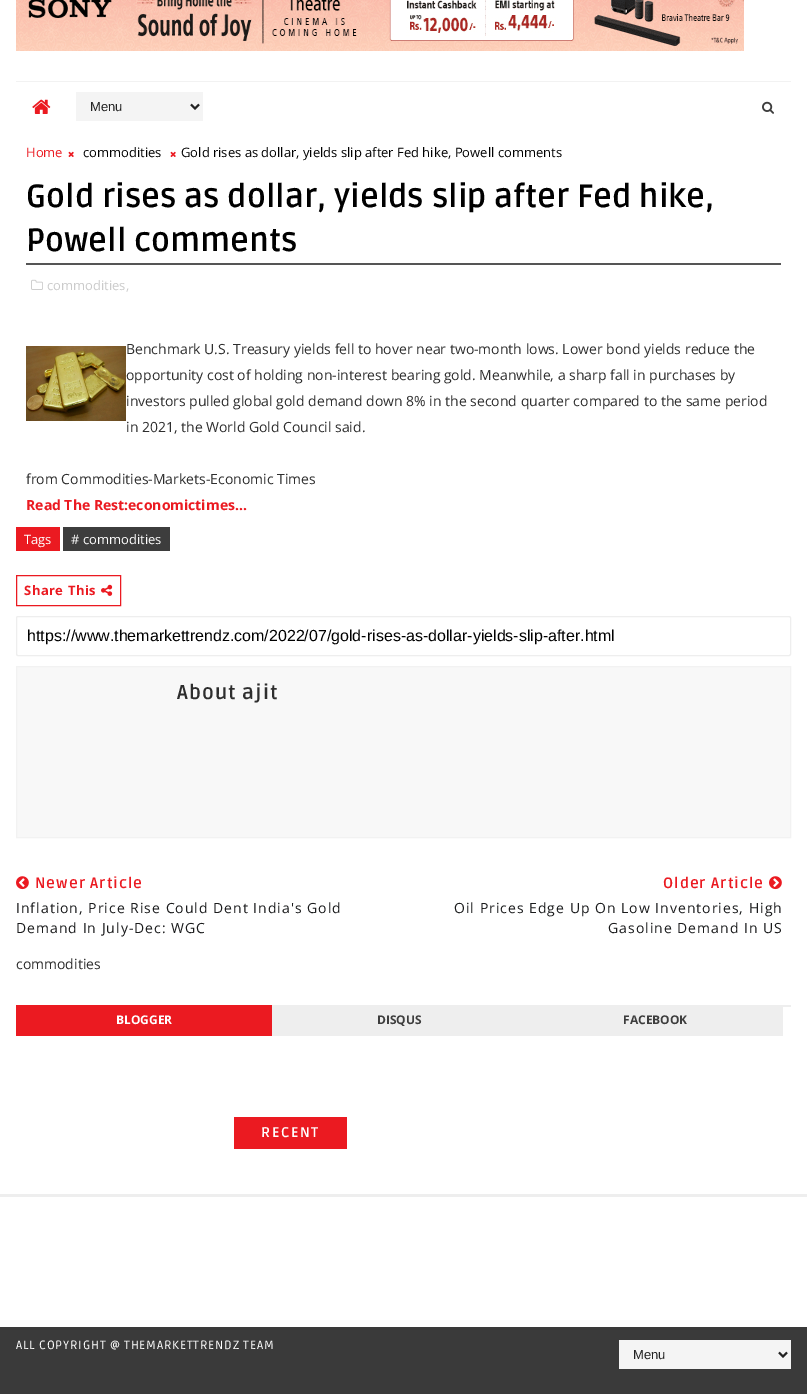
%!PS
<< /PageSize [807 1394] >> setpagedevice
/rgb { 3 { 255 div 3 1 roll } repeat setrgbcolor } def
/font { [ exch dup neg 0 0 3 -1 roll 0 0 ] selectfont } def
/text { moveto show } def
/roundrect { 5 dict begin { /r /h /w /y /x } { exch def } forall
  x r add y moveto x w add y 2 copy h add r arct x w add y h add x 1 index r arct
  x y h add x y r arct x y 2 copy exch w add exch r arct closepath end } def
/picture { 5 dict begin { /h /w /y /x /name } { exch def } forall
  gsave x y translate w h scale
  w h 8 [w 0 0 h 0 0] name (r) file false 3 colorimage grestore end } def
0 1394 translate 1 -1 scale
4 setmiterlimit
255 255 255 rgb
0 0 807 1394 rectfill
(img_01.rgb) 16 0 728 51 picture
242 242 242 rgb
16 81 775 1 rectfill
(img_02.rgb) 32 99 19 15 picture
244 244 244 rgb
76 92 127 29 rectfill
34 34 34 rgb
2 setlinewidth
191 104.5 moveto 4 4 rlineto 4 -4 rlineto stroke
(img_03.rgb) 762 101 12 13 picture
(img_04.rgb) 68 151 6 6 picture
(img_04.rgb) 170 151 6 6 picture
85 85 85 rgb
26 263 755 2 rectfill
(img_05.rgb) 31 279 12 11 picture
(img_06.rgb) 26 346 100 75 picture
235 26 33 rgb
16 527 44 24 rectfill
61 61 61 rgb
63 527 107 24 rectfill
235 26 33 rgb
1 setlinewidth
16.5 575.5 104 30 rectstroke
(img_07.rgb) 101 584 12 12 picture
238 238 238 rgb
16.5 616.5 774 39 1.5 roundrect stroke
248 248 248 rgb
16.5 666.5 moveto 774 0 rlineto 0 171 rlineto -774 0 rlineto closepath gsave fill grestore
242 242 242 rgb
stroke
(img_08.rgb) 16 876 13 14 picture
(img_09.rgb) 769 876 13 14 picture
238 238 238 rgb
783 1005 8 2 rectfill
235 26 33 rgb
16 1005 256 31 rectfill
238 238 238 rgb
272 1005 511 31 rectfill
235 26 33 rgb
234 1117 113 32 rectfill
238 238 238 rgb
0 1194 807 3 rectfill
58 58 58 rgb
0 1327 807 67 rectfill
244 244 244 rgb
619 1340 172 29 rectfill
34 34 34 rgb
2 setlinewidth
779 1352.5 moveto 4 4 rlineto 4 -4 rlineto stroke
/LiberationSans-Regular 13 font
(Menu) 90 111 text
/OpenSans-Regular 13 font
235 26 33 rgb
(Home) 26 157 text
0 0 0 rgb
(commodities) 83 157 text
(Gold rises as dollar, yields slip after Fed hike, Powell comments) 181 157 text
/Ruda-Bold 32 font
(Gold rises as dollar, yields slip after Fed hike,) 26 207 text
(Powell comments) 26 251 text
/OpenSans-Regular 13 font
203 203 203 rgb
(commodities,) 47 290 text
/OpenSans-Regular 14 font
46 46 46 rgb
(Benchmark U.S. Treasury yields fell to hover near two-month lows. Lower bond yields reduce the) 126 354 text
(opportunity cost of holding non-interest bearing gold. Meanwhile, a sharp fall in purchases by) 126 380 text
(investors pulled global gold demand down 8% in the second quarter compared to the same period) 126 406 text
(in 2021, the World Gold Council said.) 126 432 text
(from Commodities-Markets-Economic Times) 26 484 text
/OpenSans-Bold 14 font
235 26 33 rgb
(Read The Rest:economictimes...) 26 510 text
/OpenSans-Regular 13 font
255 255 255 rgb
(Tags) 24 544 text
(# commodities) 71 544 text
/OpenSans-Bold 13 font
235 26 33 rgb
24 595 moveto 0.5 0 (Share This) ashow
/LiberationSans-Regular 16 font
0 0 0 rgb
(https://www.themarkettrendz.com/2022/07/gold-rises-as-dollar-yields-slip-after.html) 27 641 text
/Ruda-Bold 20 font
46 46 46 rgb
177 699 moveto 1 0 (About ajit) ashow
/Ruda-Bold 15 font
235 26 33 rgb
35 888 moveto 1 0 (Newer Article) ashow
/OpenSans-Regular 14 font
26 27 28 rgb
16 913 moveto 1 0 (Inflation, Price Rise Could Dent India's Gold) ashow
16 933 moveto 1 0 (Demand In July-Dec: WGC) ashow
/Ruda-Bold 15 font
235 26 33 rgb
663 888 moveto 1 0 (Older Article) ashow
/OpenSans-Regular 14 font
26 27 28 rgb
454 913 moveto 1 0 (Oil Prices Edge Up On Low Inventories, High) ashow
608 933 moveto 1 0 (Gasoline Demand In US) ashow
46 46 46 rgb
(commodities) 16 969 text
/OpenSans-Bold 12 font
255 255 255 rgb
(BLOGGER) 116 1024 text
61 61 61 rgb
(DISQUS) 377 1024 text
(FACEBOOK) 623 1024 text
/Ruda-Bold 14 font
255 255 255 rgb
261 1137 moveto 1.5 0 (RECENT) ashow
/Ruda-Regular 12 font
16 1349 moveto 0.8 0 (ALL COPYRIGHT @ THEMARKETTRENDZ TEAM) ashow
/LiberationSans-Regular 13 font
34 34 34 rgb
(Menu) 633 1359 text
showpage
